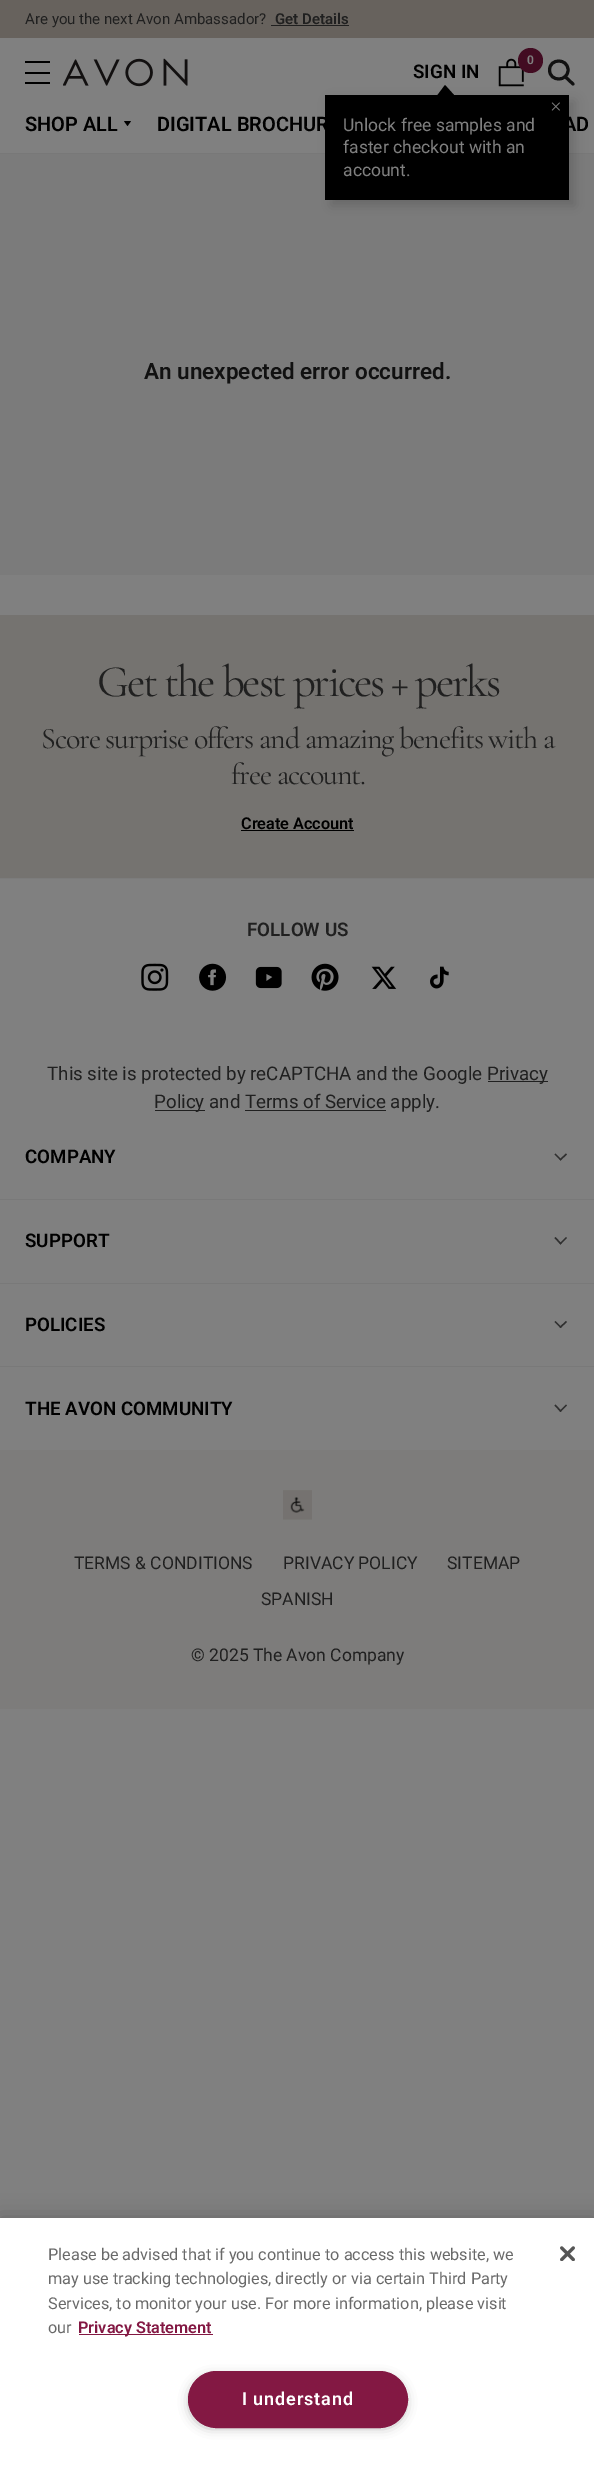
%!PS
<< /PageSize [594 2475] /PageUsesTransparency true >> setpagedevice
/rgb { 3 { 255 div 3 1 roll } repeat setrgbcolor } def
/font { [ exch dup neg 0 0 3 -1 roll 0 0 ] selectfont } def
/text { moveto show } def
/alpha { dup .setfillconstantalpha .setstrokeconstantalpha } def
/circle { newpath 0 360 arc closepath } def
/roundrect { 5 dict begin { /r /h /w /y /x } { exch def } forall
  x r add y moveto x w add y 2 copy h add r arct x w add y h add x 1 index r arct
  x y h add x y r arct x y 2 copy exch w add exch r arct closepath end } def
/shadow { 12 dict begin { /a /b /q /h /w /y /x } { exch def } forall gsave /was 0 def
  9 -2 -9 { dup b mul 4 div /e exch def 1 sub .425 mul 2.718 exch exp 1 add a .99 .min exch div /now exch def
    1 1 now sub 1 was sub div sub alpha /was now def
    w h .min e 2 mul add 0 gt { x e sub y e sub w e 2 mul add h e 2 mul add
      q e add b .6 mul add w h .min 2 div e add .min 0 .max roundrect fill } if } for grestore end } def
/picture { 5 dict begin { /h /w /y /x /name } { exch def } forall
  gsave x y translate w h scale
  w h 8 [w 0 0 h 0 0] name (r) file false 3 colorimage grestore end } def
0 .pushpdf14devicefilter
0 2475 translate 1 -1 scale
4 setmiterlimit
128 128 128 rgb
0 0 594 2475 rectfill
120 120 120 rgb
0 153 594 1 rectfill
103 98 93 rgb
0 0 594 38 rectfill
32 32 32 rgb
271 25 78 1 rectfill
0 0 0 rgb
25 61 25 2 rectfill
25 72 25 2 rectfill
25 82 25 2 rectfill
(img_01.rgb) 63 58 125 29 picture
(img_02.rgb) 498 58 26 29 picture
66 12 34 rgb
530.5 60.5 12.5 circle fill
17 17 17 rgb
3 setlinewidth
1 setlinecap
1 setlinejoin
573 84 moveto -8 -7.5 rlineto 568 70 moveto 0 12 -18.5 12 -18.5 0 rcurveto 0 -12 18.5 -12 18.5 0 rcurveto closepath stroke
123 123 123 rgb
0 154 594 421 rectfill
0 0 0 rgb
331 101 244 105 0 6 0.16 shadow
325 95 244 105 rectfill
454 95 moveto -16.5 0 rlineto 7.5 -10 rlineto closepath fill
(img_03.rgb) 551 102 9 9 picture
124 121 moveto 7 0 rlineto -3.5 5 rlineto closepath fill
117 115 112 rgb
0 615 594 263 rectfill
0 0 0 rgb
241 830 113 1 rectfill
124 124 124 rgb
0 878 594 1 rectfill
(img_04.rgb) 141 963 28 28 picture
(img_05.rgb) 199 963 28 28 picture
(img_06.rgb) 255 966 27 23 picture
(img_07.rgb) 311 963 28 28 picture
(img_08.rgb) 371 966 26 23 picture
(img_09.rgb) 430 966 19 23 picture
32 32 32 rgb
488 1081 60 1 rectfill
155 1110 50 1 rectfill
245 1110 141 1 rectfill
48 48 48 rgb
559.5 1159.5 moveto 6.5 -6 rlineto 1 1 rlineto -6.5 6 rlineto closepath fill
554.5 1154.5 moveto 1 -1 rlineto 6 6 rlineto -1 1 rlineto closepath fill
121 121 121 rgb
0 1199 594 1 rectfill
48 48 48 rgb
559.5 1243.5 moveto 6.5 -6.5 rlineto 1 1 rlineto -6.5 6.5 rlineto closepath fill
554.5 1238 moveto 1 -1 rlineto 6 6.5 rlineto -1 1 rlineto closepath fill
121 121 121 rgb
0 1283 594 1 rectfill
48 48 48 rgb
559.5 1327 moveto 6.5 -6 rlineto 1 1 rlineto -6.5 6 rlineto closepath fill
554.5 1322 moveto 1 -1 rlineto 6 6 rlineto -1 1 rlineto closepath fill
121 121 121 rgb
0 1366 594 1 rectfill
48 48 48 rgb
559.5 1411 moveto 6.5 -6.5 rlineto 1 1 rlineto -6.5 6.5 rlineto closepath fill
554.5 1405.5 moveto 1 -1 rlineto 6 6.5 rlineto -1 1 rlineto closepath fill
125 124 123 rgb
0 1450 594 259 rectfill
(img_10.rgb) 283 1490 29 30 picture
0 0 0 rgb
0 2218 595 257 0 11 0.2 shadow
255 255 255 rgb
0 2218 594 257 rectfill
131 24 67 rgb
79 2334 134 1 rectfill
153 153 153 rgb
191 2378 213 48 24 6 1 shadow
131 24 67 rgb
188.5 2371.5 219 56 28 roundrect gsave fill grestore
1 setlinewidth
0 setlinecap
0 setlinejoin
stroke
(img_11.rgb) 560 2246 15 15 picture
/Roboto-Regular 15 font
32 32 32 rgb
(Are you the next Avon Ambassador?) 25 24 text
/Roboto-SemiBold 15 font
(Get Details) 275 24 text
/Roboto-SemiBold 12 font
128 128 128 rgb
527 64 moveto -1 0 (0) ashow
/Roboto-SemiBold 18.75 font
0 0 0 rgb
(SIGN IN) 413 78 text
/Roboto-Regular 17.5 font
128 128 128 rgb
(Unlock free samples and) 343 131 text
(faster checkout with an) 343 153 text
(account.) 343 176 text
/Roboto-SemiBold 20 font
0 0 0 rgb
(SHOP ALL) 25 131 text
(DIGITAL BROCHUR) 157 131 text
(AD) 563 131 text
/Roboto-SemiBold 22.5 font
17 17 17 rgb
(An unexpected error occurred.) 144 379 text
/CormorantGaramond-Regular 45 font
32 32 32 rgb
97 696 moveto -2.25 0 (Get the best prices + perks) ashow
/CormorantGaramond-Regular 30 font
41 748 moveto -1.2 0 (Score surprise offers and amazing benefits with a) ashow
231 784 moveto -1.2 0 (free account.) ashow
/Roboto-SemiBold 16.25 font
0 0 0 rgb
(Create Account) 241 829 text
/Roboto-SemiBold 18.75 font
32 32 32 rgb
(FOLLOW US) 247 936 text
/Roboto-Regular 18.75 font
(This site is protected by reCAPTCHA and the Google) 47 1080 text
(Privacy) 487 1080 text
(Policy and Terms of Service apply.) 154 1108 text
/Roboto-SemiBold 18.75 font
0 0 0 rgb
(COMPANY) 25 1163 text
(SUPPORT) 25 1247 text
(POLICIES) 25 1331 text
(THE AVON COMMUNITY) 25 1415 text
/Roboto-Regular 17.5 font
32 32 32 rgb
(TERMS & CONDITIONS) 74 1569 text
(PRIVACY POLICY) 283 1569 text
(SITEMAP) 447 1569 text
(SPANISH) 261 1605 text
(© 2025 The Avon Company) 191 1661 text
/Roboto-Regular 16.25 font
105 105 105 rgb
(Please be advised that if you continue to access this website, we) 48 2260 text
(may use tracking technologies, directly or via certain Third Party) 48 2284 text
(Services, to monitor your use. For more information, please visit) 48 2309 text
(our) 48 2333 text
/Roboto-SemiBold 16.25 font
131 24 67 rgb
(Privacy Statement) 78 2333 text
/Roboto-SemiBold 18 font
255 255 255 rgb
242 2405 moveto 0.9 0 (I understand) ashow
.poppdf14devicefilter showpage
